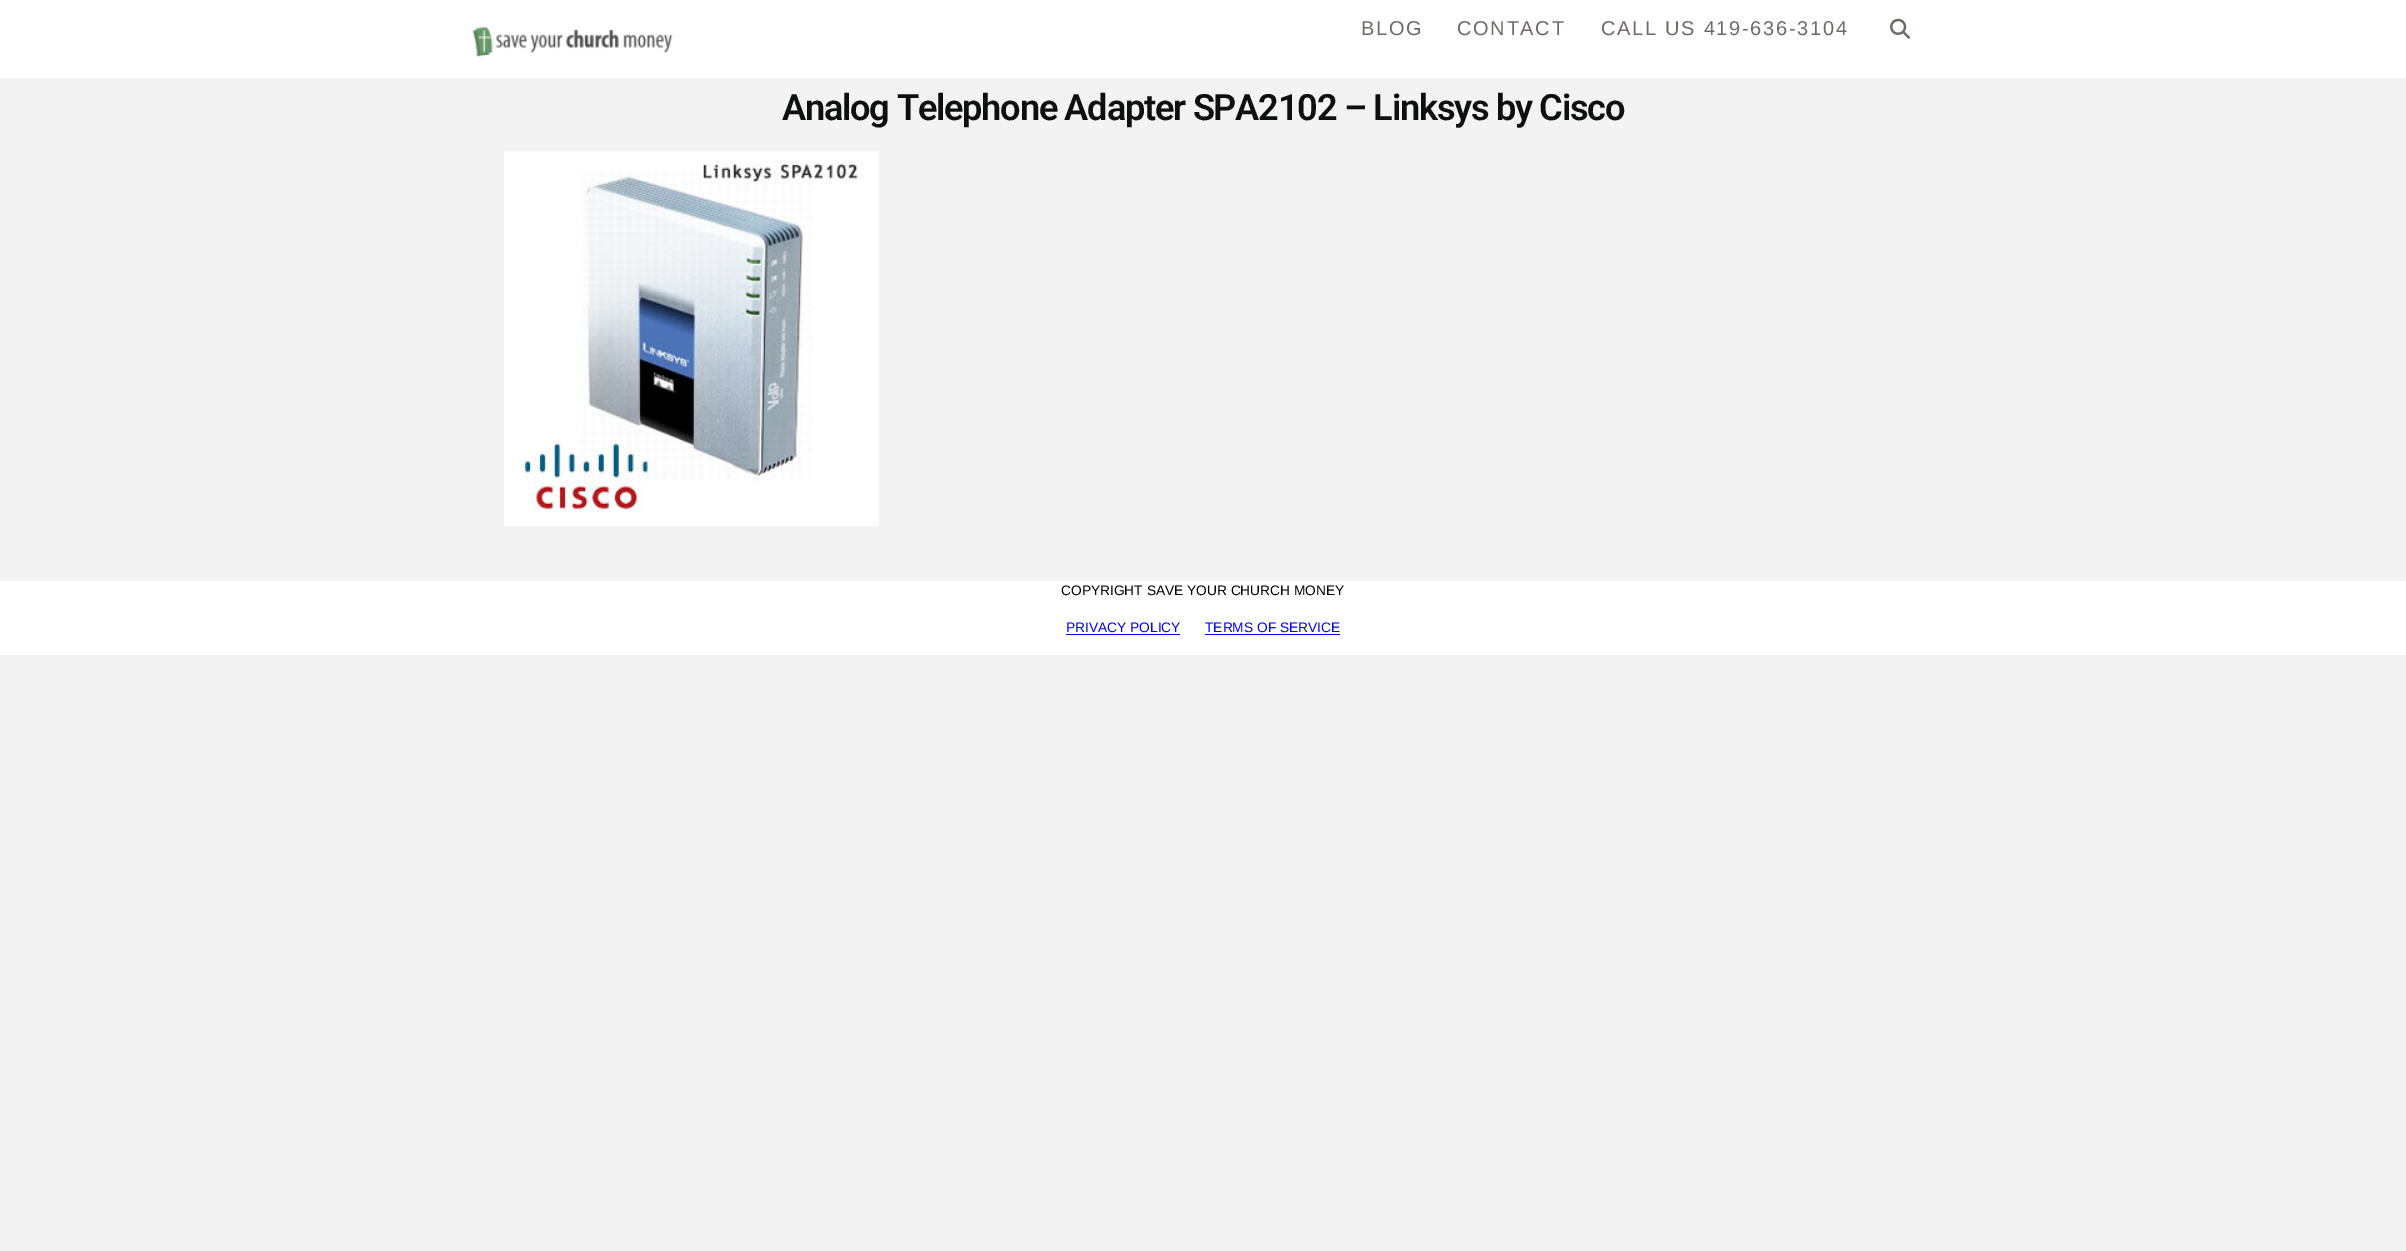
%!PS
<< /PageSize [2406 1251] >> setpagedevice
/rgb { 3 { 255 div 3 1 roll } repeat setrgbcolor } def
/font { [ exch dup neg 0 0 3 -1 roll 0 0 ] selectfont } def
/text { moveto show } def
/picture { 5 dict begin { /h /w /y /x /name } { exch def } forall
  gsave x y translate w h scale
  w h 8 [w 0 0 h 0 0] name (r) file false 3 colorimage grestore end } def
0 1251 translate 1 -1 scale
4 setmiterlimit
243 243 243 rgb
0 0 2406 1251 rectfill
255 255 255 rgb
0 0 2406 78 rectfill
(img_01.rgb) 472 27 201 30 picture
(img_02.rgb) 1890 18 20 21 picture
(img_03.rgb) 504 151 375 375 picture
0 581 2406 74 rectfill
0 0 255 rgb
1066 634 114 1 rectfill
1205 634 135 1 rectfill
/LiberationSans-Regular 20 font
114 104 104 rgb
1361 35 moveto 1.7 0 (BLOG) ashow
1457 35 moveto 1.7 0 (CONTACT) ashow
1601 35 moveto 1.7 0 (CALL US 419-636-3104) ashow
/Roboto-SemiBold 36.25 font
14 15 15 rgb
782 120 moveto -1.27 0 (Analog Telephone Adapter SPA2102 – Linksys by Cisco) ashow
/LiberationSans-Regular 13.75 font
0 0 0 rgb
(COPYRIGHT SAVE YOUR CHURCH MONEY) 1061 595 text
0 0 255 rgb
(PRIVACY POLICY) 1066 632 text
(TERMS OF SERVICE) 1205 632 text
showpage
